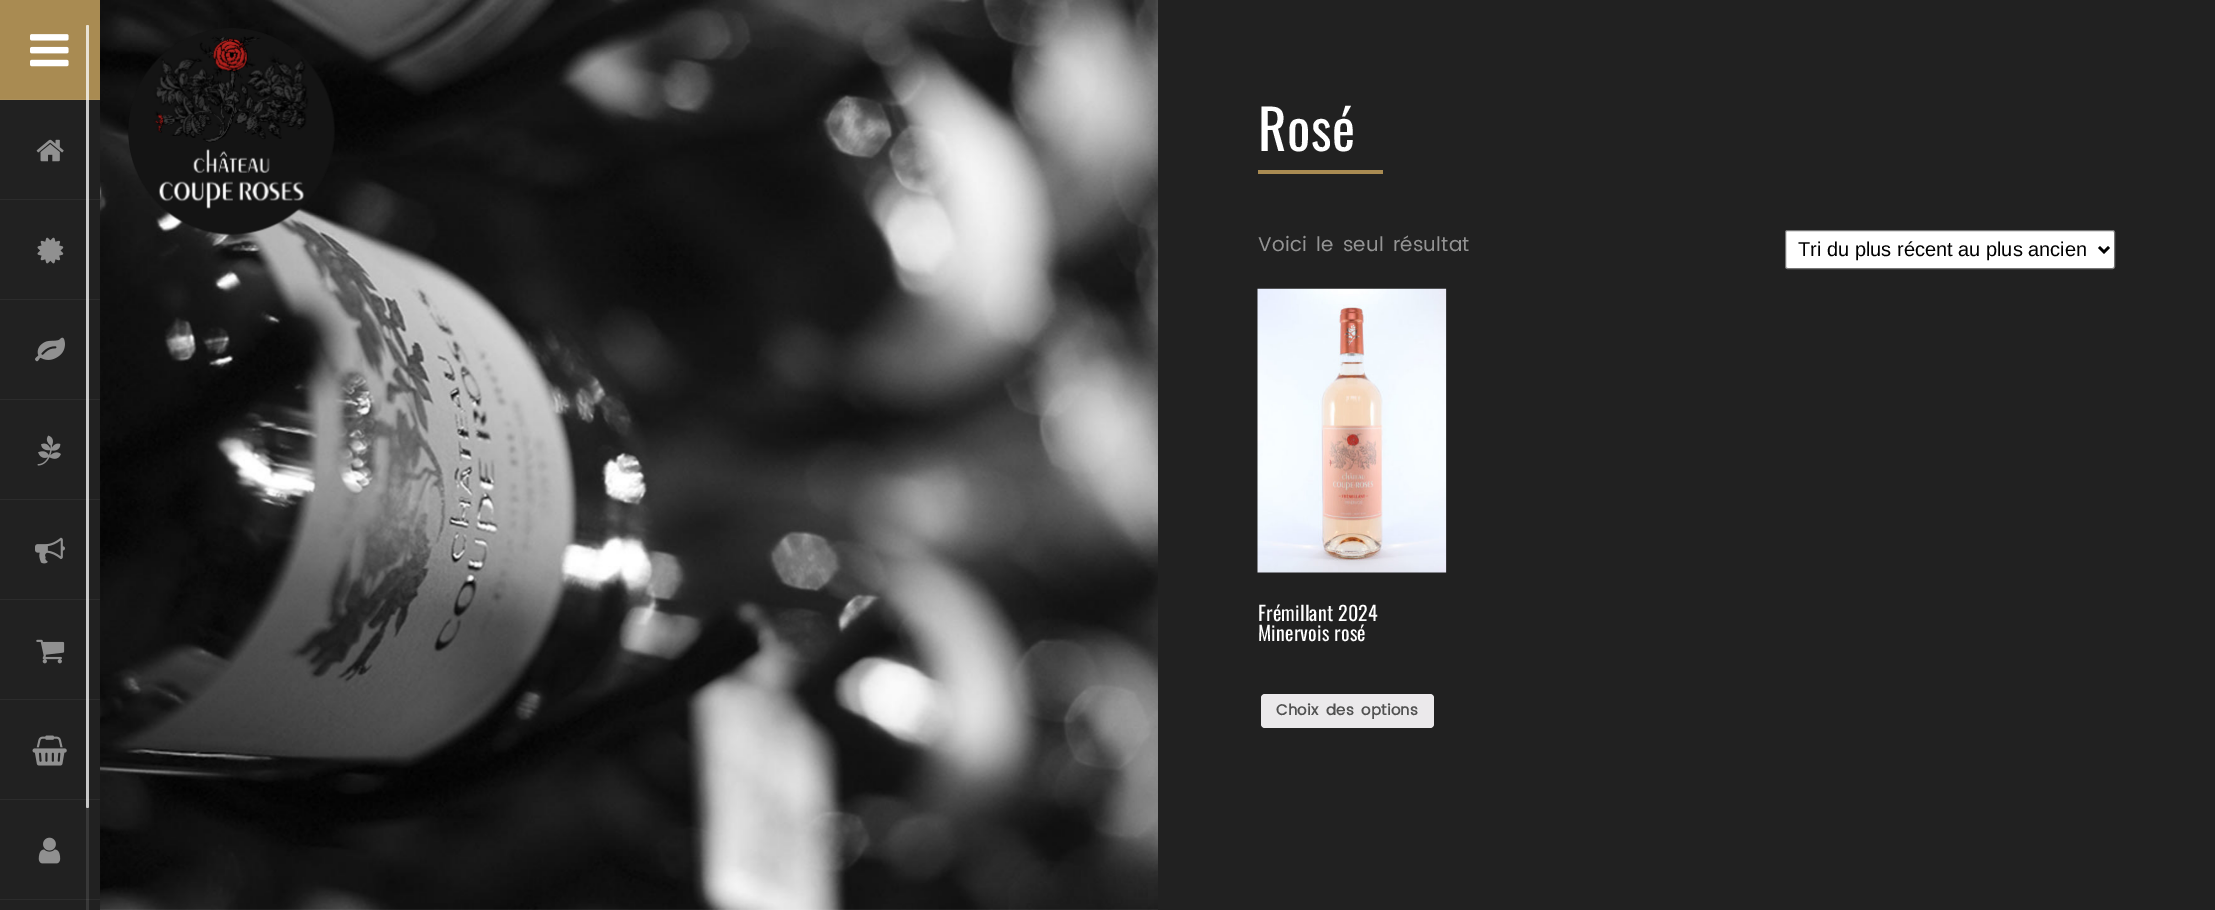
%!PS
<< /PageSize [2215 910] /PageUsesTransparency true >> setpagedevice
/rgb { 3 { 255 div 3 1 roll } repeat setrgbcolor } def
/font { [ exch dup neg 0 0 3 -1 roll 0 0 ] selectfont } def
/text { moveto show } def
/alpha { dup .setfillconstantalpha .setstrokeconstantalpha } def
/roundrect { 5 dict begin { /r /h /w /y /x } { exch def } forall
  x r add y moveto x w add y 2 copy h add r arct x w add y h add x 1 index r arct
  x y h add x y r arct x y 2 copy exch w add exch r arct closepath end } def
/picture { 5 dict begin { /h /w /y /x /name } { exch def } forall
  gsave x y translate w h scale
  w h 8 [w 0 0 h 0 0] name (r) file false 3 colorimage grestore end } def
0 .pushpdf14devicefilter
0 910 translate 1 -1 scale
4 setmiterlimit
255 255 255 rgb
0 0 2215 910 rectfill
33 33 33 rgb
0 100 100 810 rectfill
169 139 82 rgb
0 0 100 99 rectfill
173 145 91 rgb
0 99 100 1 rectfill
(img_01.rgb) 30 34 39 33 picture
44 44 44 rgb
0 199 100 1 rectfill
(img_02.rgb) 36 139 28 23 picture
0 299 100 1 rectfill
(img_03.rgb) 37 237 27 27 picture
0 399 100 1 rectfill
(img_04.rgb) 35 337 30 25 picture
0 499 100 1 rectfill
(img_05.rgb) 37 435 24 31 picture
0 599 100 1 rectfill
(img_06.rgb) 35 537 30 27 picture
0 699 100 1 rectfill
(img_07.rgb) 36 639 29 25 picture
0 799 100 1 rectfill
(img_08.rgb) 32 735 35 31 picture
0 899 100 1 rectfill
(img_09.rgb) 38 837 23 27 picture
0.75 alpha
255 255 255 rgb
86 25 3 783 1.5 roundrect fill
0.1 alpha
86 808 3 102 rectfill
1 alpha
(img_10.rgb) 100 0 1058 910 picture
(img_11.rgb) 128 28 207 207 picture
33 33 33 rgb
1158 0 1057 910 rectfill
169 139 82 rgb
1258 170 125 4 rectfill
255 255 255 rgb
1785.5 230.5 329 38 2 roundrect gsave fill grestore
118 118 118 rgb
stroke
0 0 0 rgb
2.5 setlinewidth
2099 247 moveto 5 5 rlineto 5 -5 rlineto stroke
(img_12.rgb) 1257 288 190 285 picture
235 233 235 rgb
1261 694 173 34 4 roundrect fill
/Oswald-Regular 55 font
255 255 255 rgb
1258 151 moveto 0.5 0 (Rosé) ashow
/Poppins-Regular 20 font
148 148 148 rgb
1258 251 moveto 3 0 32 0.2 0 (Voici le seul résultat) awidthshow
/LiberationSans-Regular 20 font
0 0 0 rgb
(Tri du plus récent au plus ancien) 1798 256 text
/Oswald-Regular 20 font
255 255 255 rgb
1258 621 moveto 0.2 0 (Frémillant 2024) ashow
1258 641 moveto 0.2 0 (Minervois rosé) ashow
/Poppins-Bold 15 font
81 81 81 rgb
1276 715 moveto 3 0 32 0.2 0 (Choix des options) awidthshow
.poppdf14devicefilter showpage
